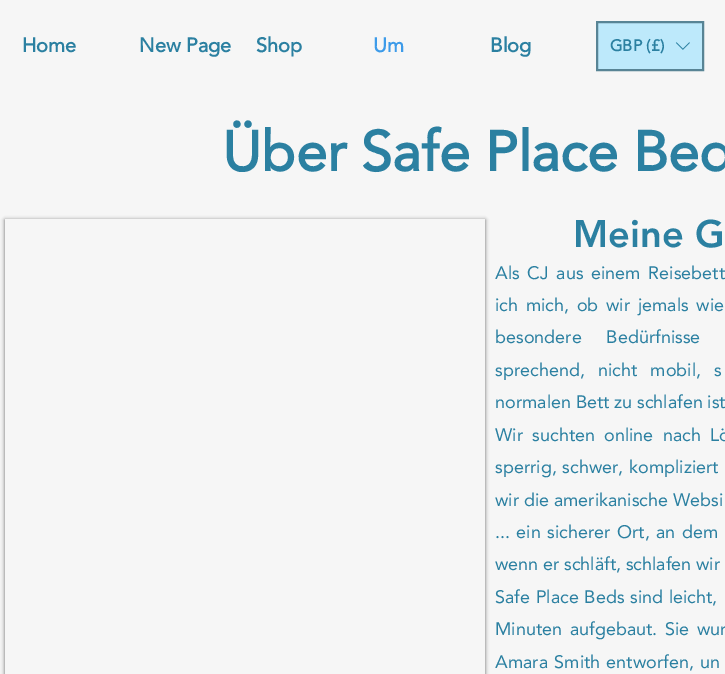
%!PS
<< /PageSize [725 674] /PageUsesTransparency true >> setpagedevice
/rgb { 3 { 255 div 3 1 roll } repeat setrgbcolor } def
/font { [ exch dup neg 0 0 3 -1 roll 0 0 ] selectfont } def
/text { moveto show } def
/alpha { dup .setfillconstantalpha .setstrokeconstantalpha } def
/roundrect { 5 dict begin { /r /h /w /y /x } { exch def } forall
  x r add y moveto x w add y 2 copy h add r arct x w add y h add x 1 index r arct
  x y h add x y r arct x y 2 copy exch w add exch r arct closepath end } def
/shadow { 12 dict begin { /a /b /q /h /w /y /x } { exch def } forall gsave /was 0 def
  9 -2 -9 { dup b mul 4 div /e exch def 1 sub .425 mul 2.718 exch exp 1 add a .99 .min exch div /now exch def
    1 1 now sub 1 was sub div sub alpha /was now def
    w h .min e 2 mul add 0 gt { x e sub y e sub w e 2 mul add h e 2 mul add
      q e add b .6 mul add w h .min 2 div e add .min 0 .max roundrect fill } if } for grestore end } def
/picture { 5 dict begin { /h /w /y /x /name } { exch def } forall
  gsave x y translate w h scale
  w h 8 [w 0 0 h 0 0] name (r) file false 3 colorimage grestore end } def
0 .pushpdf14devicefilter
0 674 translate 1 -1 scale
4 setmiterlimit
246 246 246 rgb
0 0 725 674 rectfill
189 233 251 rgb
597 22 moveto 106 0 rlineto 0 48 rlineto -106 0 rlineto closepath gsave fill grestore
88 132 149 rgb
2 setlinewidth
stroke
(img_01.rgb) 675 42 15 8 picture
gsave
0 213 moveto 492 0 rlineto 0 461 rlineto -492 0 rlineto closepath 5 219 moveto 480 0 rlineto 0 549 rlineto -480 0 rlineto closepath eoclip newpath
0 0 0 rgb
5 220 480 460 0 2 0.6 shadow
grestore
/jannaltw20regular-Bold 20 font
43 128 161 rgb
(Home) 22 52 text
(New Page) 139 52 text
(Shop) 256 52 text
61 155 233 rgb
(Um) 373 52 text
43 128 161 rgb
(Blog) 490 52 text
/jannaltw20regular-Bold 16 font
(GBP \(£\)) 610 51 text
/jannaltw20regular-Bold 56 font
(Über Safe Place Bed) 222 171 text
/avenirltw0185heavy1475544-Black 38 font
(Meine G) 573 247 text
/jannaltw20regular-Regular 18 font
495 279 moveto 3 0 32 (Als CJ aus einem Reisebett) widthshow
495 311 moveto 3 0 32 (ich mich, ob wir jemals wie) widthshow
495 343 moveto 20 0 32 (besondere Bedürfnisse) widthshow
495 376 moveto 8.5 0 32 (sprechend, nicht mobil, s) widthshow
(normalen Bett zu schlafen ist) 495 408 text
495 441 moveto 4.5 0 32 (Wir suchten online nach Lö) widthshow
495 473 moveto 1 0 32 (sperrig, schwer, kompliziert) widthshow
(wir die amerikanische Websi) 495 506 text
495 538 moveto 1.75 0 32 (... ein sicherer Ort, an dem) widthshow
(wenn er schläft, schlafen wir) 495 570 text
495 603 moveto 1 0 32 (Safe Place Beds sind leicht,) widthshow
495 635 moveto 3 0 32 (Minuten aufgebaut. Sie wur) widthshow
495 668 moveto 1.5 0 32 (Amara Smith entworfen, un) widthshow
.poppdf14devicefilter showpage
